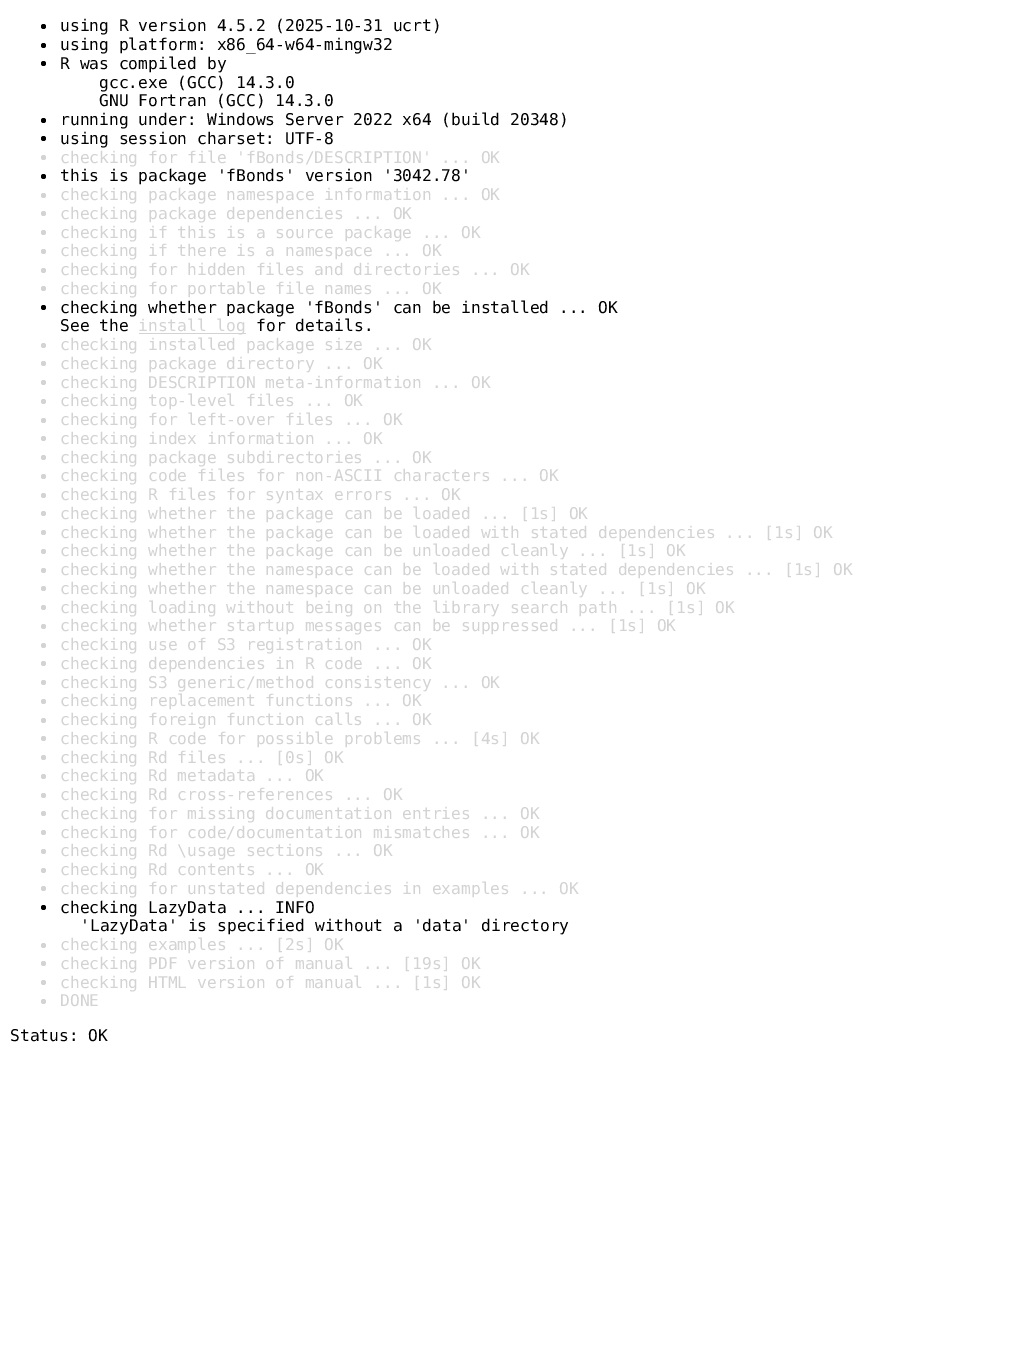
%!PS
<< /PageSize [1019 1359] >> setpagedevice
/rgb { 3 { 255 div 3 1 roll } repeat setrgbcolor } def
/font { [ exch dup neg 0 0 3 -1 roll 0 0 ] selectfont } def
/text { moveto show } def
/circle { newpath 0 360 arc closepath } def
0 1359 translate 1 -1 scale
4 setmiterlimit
255 255 255 rgb
0 0 1019 1359 rectfill
0 0 0 rgb
43.5 26.5 2.5 circle fill
43.5 45.5 2.5 circle fill
43.5 63.5 2.5 circle fill
43.5 120.5 2.5 circle fill
43.5 138.5 2.5 circle fill
211 211 211 rgb
43.5 157.5 2.5 circle fill
0 0 0 rgb
43.5 176.5 2.5 circle fill
211 211 211 rgb
43.5 195.5 2.5 circle fill
43.5 213.5 2.5 circle fill
43.5 232.5 2.5 circle fill
43.5 251.5 2.5 circle fill
43.5 270.5 2.5 circle fill
43.5 288.5 2.5 circle fill
0 0 0 rgb
43.5 307.5 2.5 circle fill
211 211 211 rgb
139 333 107 1 rectfill
43.5 345.5 2.5 circle fill
43.5 363.5 2.5 circle fill
43.5 382.5 2.5 circle fill
43.5 401.5 2.5 circle fill
43.5 420.5 2.5 circle fill
43.5 438.5 2.5 circle fill
43.5 457.5 2.5 circle fill
43.5 476.5 2.5 circle fill
43.5 495.5 2.5 circle fill
43.5 513.5 2.5 circle fill
43.5 532.5 2.5 circle fill
43.5 551.5 2.5 circle fill
43.5 570.5 2.5 circle fill
43.5 588.5 2.5 circle fill
43.5 607.5 2.5 circle fill
43.5 626.5 2.5 circle fill
43.5 645.5 2.5 circle fill
43.5 663.5 2.5 circle fill
43.5 682.5 2.5 circle fill
43.5 701.5 2.5 circle fill
43.5 720.5 2.5 circle fill
43.5 738.5 2.5 circle fill
43.5 757.5 2.5 circle fill
43.5 776.5 2.5 circle fill
43.5 795.5 2.5 circle fill
43.5 813.5 2.5 circle fill
43.5 832.5 2.5 circle fill
43.5 851.5 2.5 circle fill
43.5 870.5 2.5 circle fill
43.5 888.5 2.5 circle fill
0 0 0 rgb
43.5 907.5 2.5 circle fill
211 211 211 rgb
43.5 945.5 2.5 circle fill
43.5 963.5 2.5 circle fill
43.5 982.5 2.5 circle fill
43.5 1001.5 2.5 circle fill
/DejaVuSansMono-Regular 16.25 font
0 0 0 rgb
(using R version 4.5.2 \(2025-10-31 ucrt\)) 60 31 text
(using platform: x86_64-w64-mingw32) 60 50 text
(R was compiled by) 60 69 text
(gcc.exe \(GCC\) 14.3.0) 99 88 text
(GNU Fortran \(GCC\) 14.3.0) 99 106 text
(running under: Windows Server 2022 x64 \(build 20348\)) 60 125 text
(using session charset: UTF-8) 60 144 text
211 211 211 rgb
(checking for file 'fBonds/DESCRIPTION' ... OK) 60 163 text
0 0 0 rgb
(this is package 'fBonds' version '3042.78') 60 181 text
211 211 211 rgb
(checking package namespace information ... OK) 60 200 text
(checking package dependencies ... OK) 60 219 text
(checking if this is a source package ... OK) 60 238 text
(checking if there is a namespace ... OK) 60 256 text
(checking for hidden files and directories ... OK) 60 275 text
(checking for portable file names ... OK) 60 294 text
0 0 0 rgb
(checking whether package 'fBonds' can be installed ... OK) 60 313 text
(See the) 60 331 text
211 211 211 rgb
(install log) 138 331 text
255 255 255 rgb
227 316 3 1 rectfill
0 0 0 rgb
(for details.) 256 331 text
211 211 211 rgb
(checking installed package size ... OK) 60 350 text
(checking package directory ... OK) 60 369 text
(checking DESCRIPTION meta-information ... OK) 60 388 text
(checking top-level files ... OK) 60 406 text
(checking for left-over files ... OK) 60 425 text
(checking index information ... OK) 60 444 text
(checking package subdirectories ... OK) 60 463 text
(checking code files for non-ASCII characters ... OK) 60 481 text
(checking R files for syntax errors ... OK) 60 500 text
(checking whether the package can be loaded ... [1s] OK) 60 519 text
(checking whether the package can be loaded with stated dependencies ... [1s] OK) 60 538 text
(checking whether the package can be unloaded cleanly ... [1s] OK) 60 556 text
(checking whether the namespace can be loaded with stated dependencies ... [1s] OK) 60 575 text
(checking whether the namespace can be unloaded cleanly ... [1s] OK) 60 594 text
(checking loading without being on the library search path ... [1s] OK) 60 613 text
(checking whether startup messages can be suppressed ... [1s] OK) 60 631 text
(checking use of S3 registration ... OK) 60 650 text
(checking dependencies in R code ... OK) 60 669 text
(checking S3 generic/method consistency ... OK) 60 688 text
(checking replacement functions ... OK) 60 706 text
(checking foreign function calls ... OK) 60 725 text
(checking R code for possible problems ... [4s] OK) 60 744 text
(checking Rd files ... [0s] OK) 60 763 text
(checking Rd metadata ... OK) 60 781 text
(checking Rd cross-references ... OK) 60 800 text
(checking for missing documentation entries ... OK) 60 819 text
(checking for code/documentation mismatches ... OK) 60 838 text
(checking Rd \\usage sections ... OK) 60 856 text
(checking Rd contents ... OK) 60 875 text
(checking for unstated dependencies in examples ... OK) 60 894 text
0 0 0 rgb
(checking LazyData ... INFO) 60 913 text
('LazyData' is specified without a 'data' directory) 80 931 text
211 211 211 rgb
(checking examples ... [2s] OK) 60 950 text
(checking PDF version of manual ... [19s] OK) 60 969 text
(checking HTML version of manual ... [1s] OK) 60 988 text
(DONE) 60 1006 text
0 0 0 rgb
(Status: OK) 10 1041 text
showpage
